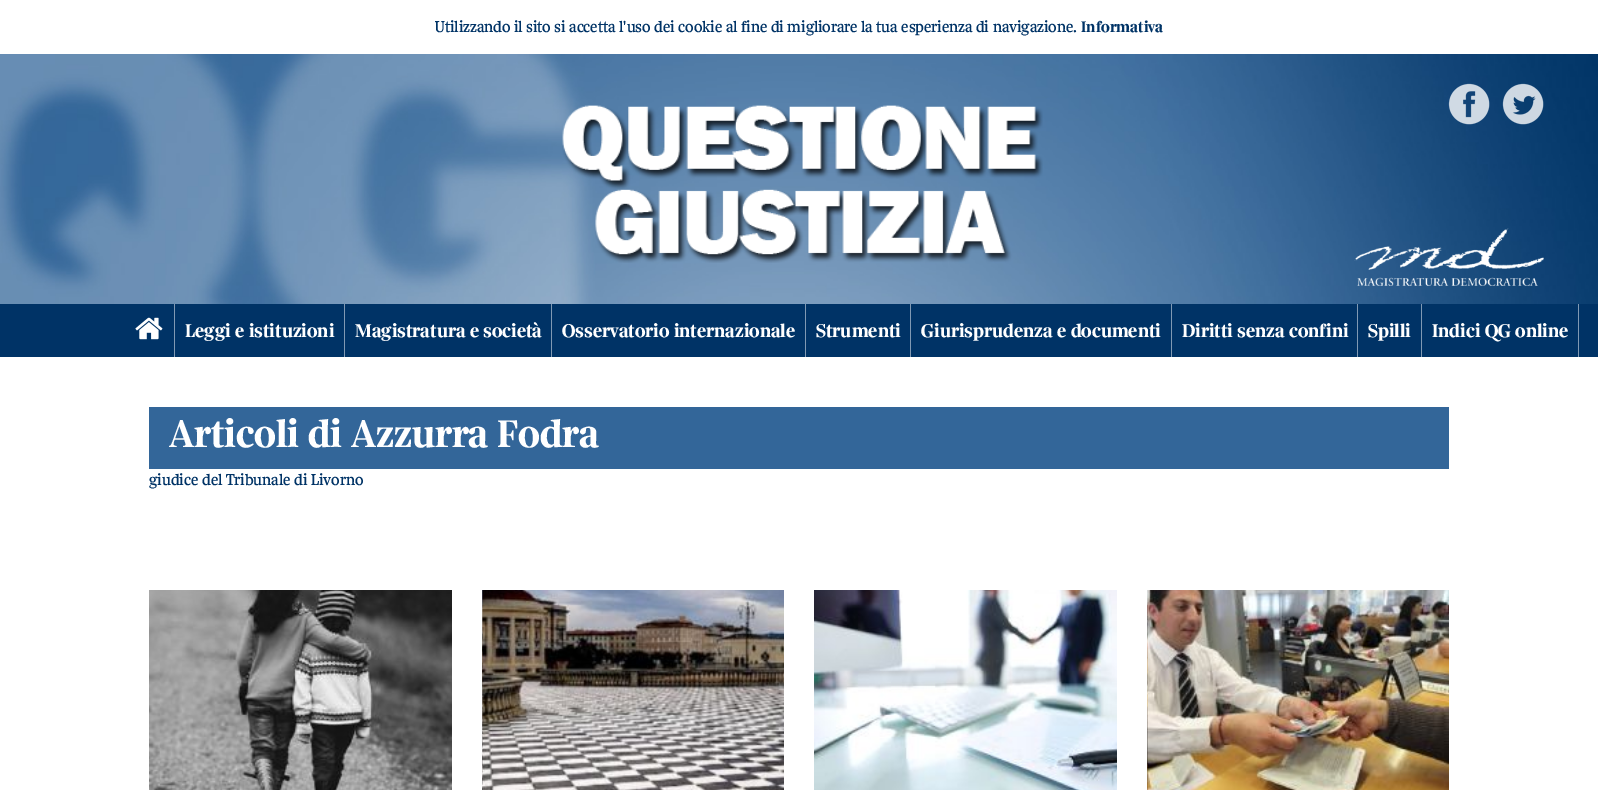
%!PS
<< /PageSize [1598 792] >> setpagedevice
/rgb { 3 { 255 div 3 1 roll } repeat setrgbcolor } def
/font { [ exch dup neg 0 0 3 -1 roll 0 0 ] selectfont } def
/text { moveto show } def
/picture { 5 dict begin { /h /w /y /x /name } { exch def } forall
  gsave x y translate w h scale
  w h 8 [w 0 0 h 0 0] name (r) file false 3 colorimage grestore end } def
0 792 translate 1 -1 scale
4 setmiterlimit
255 255 255 rgb
0 0 1598 792 rectfill
(img_01.rgb) 0 54 1598 250 picture
(img_02.rgb) 562 105 481 158 picture
(img_03.rgb) 1448 83 42 42 picture
(img_04.rgb) 1502 83 42 42 picture
(img_05.rgb) 1354 228 190 58 picture
0 51 102 rgb
0 304 1598 53 rectfill
(img_06.rgb) 135 317 28 23 picture
128 153 179 rgb
344 304 1 53 rectfill
174 304 1 53 rectfill
551 304 1 53 rectfill
805 304 1 53 rectfill
910 304 1 53 rectfill
1171 304 1 53 rectfill
1357 304 1 53 rectfill
1421 304 1 53 rectfill
1578 304 1 53 rectfill
51 102 153 rgb
149 407 1300 62 rectfill
(img_07.rgb) 149 590 303 200 picture
(img_08.rgb) 482 590 302 200 picture
(img_09.rgb) 814 590 303 200 picture
(img_10.rgb) 1147 590 302 200 picture
/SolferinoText-Regular 16 font
0 51 102 rgb
(Utilizzando il sito si accetta l'uso dei cookie al fine di migliorare la tua esperienza di navigazione.) 435 32 text
/SolferinoText-Bold 16 font
(Informativa) 1081 32 text
/SolferinoText-Bold 19.25 font
255 255 255 rgb
(Leggi e istituzioni) 185 337 text
(Magistratura e società) 355 337 text
(Osservatorio internazionale) 562 337 text
(Strumenti) 816 337 text
(Giurisprudenza e documenti) 921 337 text
(Diritti senza confini) 1182 337 text
(Spilli) 1368 337 text
(Indici QG online) 1432 337 text
/SolferinoText-Bold 40 font
(Articoli di Azzurra Fodra) 169 447 text
/SolferinoText-Regular 16 font
0 51 102 rgb
(giudice del Tribunale di Livorno) 149 485 text
showpage
